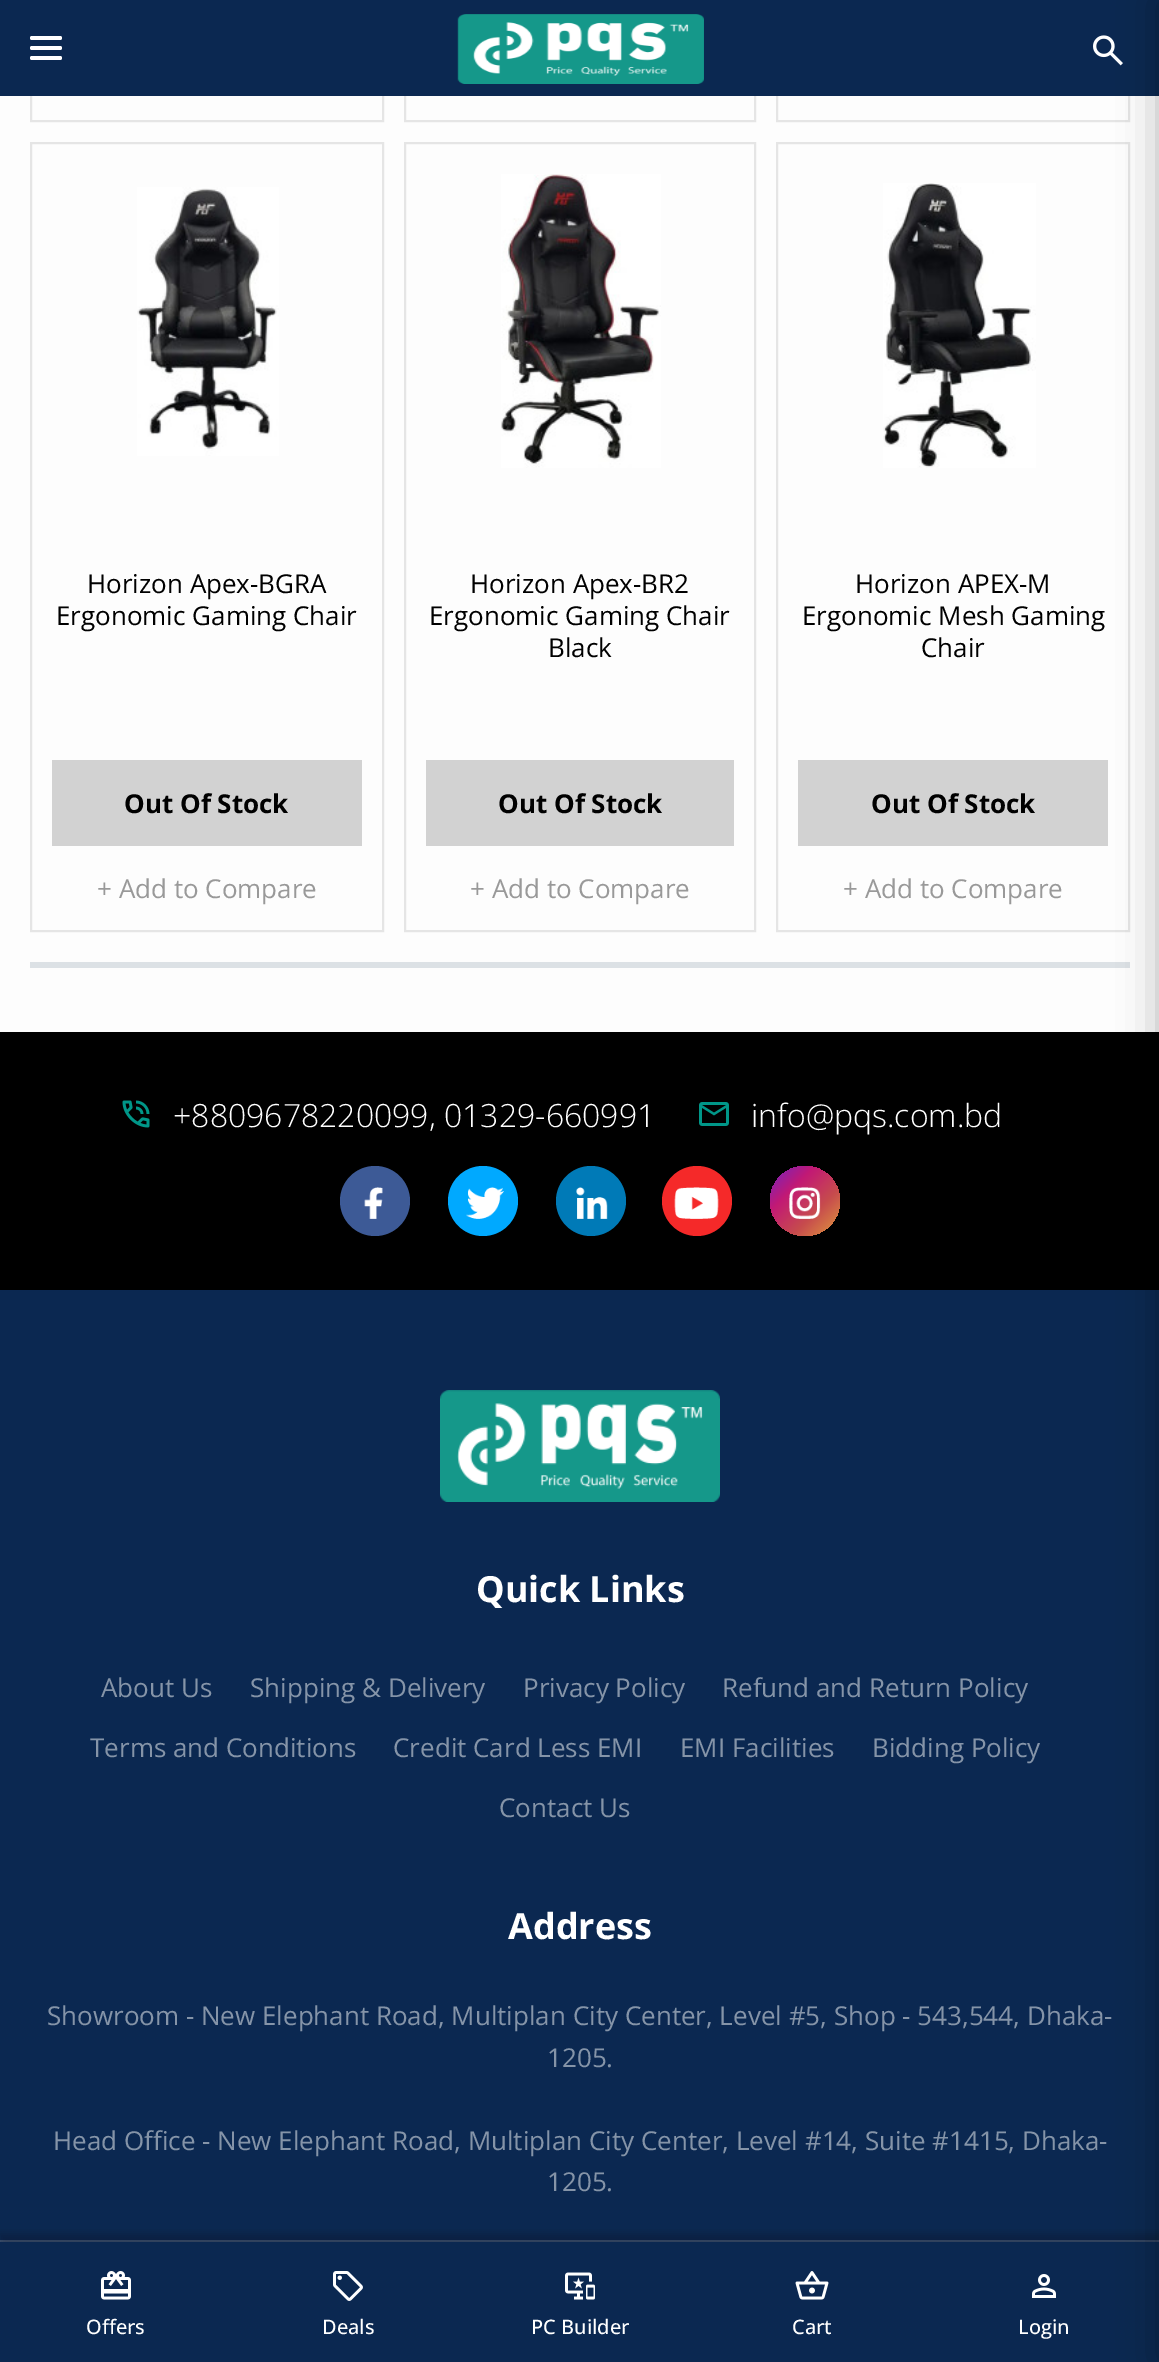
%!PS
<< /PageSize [1159 2362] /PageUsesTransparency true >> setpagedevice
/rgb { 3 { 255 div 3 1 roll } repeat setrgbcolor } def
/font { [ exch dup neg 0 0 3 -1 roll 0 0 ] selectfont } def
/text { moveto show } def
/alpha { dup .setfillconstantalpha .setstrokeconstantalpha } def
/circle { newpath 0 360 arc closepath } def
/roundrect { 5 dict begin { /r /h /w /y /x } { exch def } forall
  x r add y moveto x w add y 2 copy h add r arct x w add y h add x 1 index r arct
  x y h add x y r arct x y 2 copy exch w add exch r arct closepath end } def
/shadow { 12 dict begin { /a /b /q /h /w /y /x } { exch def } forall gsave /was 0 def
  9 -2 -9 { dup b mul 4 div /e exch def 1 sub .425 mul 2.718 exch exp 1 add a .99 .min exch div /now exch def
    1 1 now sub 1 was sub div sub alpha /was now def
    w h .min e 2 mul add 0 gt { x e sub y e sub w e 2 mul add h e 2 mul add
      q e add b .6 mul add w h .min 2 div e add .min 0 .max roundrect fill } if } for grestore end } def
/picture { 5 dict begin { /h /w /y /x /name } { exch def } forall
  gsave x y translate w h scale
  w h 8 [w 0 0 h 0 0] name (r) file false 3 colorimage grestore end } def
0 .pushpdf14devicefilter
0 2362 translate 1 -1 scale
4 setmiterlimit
253 253 253 rgb
0 0 1159 2362 rectfill
229 229 229 rgb
2 setlinewidth
31 -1 352 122 rectstroke
405 -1 350 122 rectstroke
777 -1 352 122 rectstroke
11 40 81 rgb
0 0 1159 96 rectfill
255 255 255 rgb
30 46 32 4 2 roundrect fill
30 36 32 4 2 roundrect fill
30 56 32 4 2 roundrect fill
(img_01.rgb) 457 14 247 70 picture
(img_02.rgb) 1093 35 30 31 picture
229 229 229 rgb
31 143 352 788 rectstroke
(img_03.rgb) 137 187 142 269 picture
210 210 210 rgb
52 760 310 86 rectfill
229 229 229 rgb
405 143 350 788 rectstroke
(img_04.rgb) 501 174 160 294 picture
210 210 210 rgb
426 760 308 86 rectfill
229 229 229 rgb
777 143 352 788 rectstroke
(img_05.rgb) 883 183 153 285 picture
210 210 210 rgb
798 760 310 86 rectfill
220 225 229 rgb
30 962 1100 6 rectfill
11 40 81 rgb
0 1290 1159 1072 rectfill
0 0 0 rgb
0 1032 1159 258 rectfill
60 83 116 rgb
0 2240 1159 2 rectfill
0 0 0 rgb
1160 0 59 2362 0 20 0.3 shadow
(img_06.rgb) 122 1100 28 28 picture
(img_07.rgb) 699 1102 30 24 picture
61 90 150 rgb
375 1201 35 circle fill
(img_08.rgb) 364 1187 19 32 picture
0 169 255 rgb
483 1201 35 circle fill
(img_09.rgb) 466 1187 38 32 picture
0 122 183 rgb
591 1201 35 circle fill
(img_10.rgb) 576 1187 32 32 picture
245 41 41 rgb
697 1201 35 circle fill
(img_11.rgb) 674 1187 45 32 picture
gsave 805 1201 35 circle clip newpath
<< /ShadingType 2 /ColorSpace /DeviceRGB /Coords [770 1166 840 1236] /Extend [true true] /Function << /FunctionType 3 /Domain [0 1] /Functions [<< /FunctionType 2 /Domain [0 1] /C0 [0.439 0.141 0.769] /C1 [0.761 0.098 0.459] /N 1 >> << /FunctionType 2 /Domain [0 1] /C0 [0.761 0.098 0.459] /C1 [0.78 0.298 0.302] /N 1 >> << /FunctionType 2 /Domain [0 1] /C0 [0.78 0.298 0.302] /C1 [0.878 0.608 0.239] /N 1 >>] /Bounds [0.32 0.66] /Encode [0 1 0 1 0 1] >> >> shfill grestore
(img_12.rgb) 789 1187 32 32 picture
(img_13.rgb) 440 1390 280 112 picture
gsave
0 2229 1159 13 rectclip
0 0 0 rgb
0 2234 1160 120 0 4 0.2 shadow
grestore
(img_14.rgb) 101 2271 30 29 picture
(img_15.rgb) 333 2271 30 30 picture
(img_16.rgb) 565 2272 30 28 picture
(img_17.rgb) 795 2271 34 29 picture
(img_18.rgb) 1032 2274 24 24 picture
/OpenSans-Regular 26 font
0 0 0 rgb
(Horizon Apex-BGRA) 87 593 text
(Ergonomic Gaming Chair) 56 625 text
/OpenSans-Bold 26 font
(Out Of Stock) 124 813 text
/OpenSans-Regular 26 font
153 153 153 rgb
(+ Add to Compare) 97 898 text
0 0 0 rgb
(Horizon Apex-BR2) 470 593 text
(Ergonomic Gaming Chair) 429 625 text
(Black) 548 657 text
/OpenSans-Bold 26 font
(Out Of Stock) 498 813 text
/OpenSans-Regular 26 font
153 153 153 rgb
(+ Add to Compare) 470 898 text
0 0 0 rgb
(Horizon APEX-M) 855 593 text
(Ergonomic Mesh Gaming) 802 625 text
(Chair) 921 657 text
/OpenSans-Bold 26 font
(Out Of Stock) 871 813 text
/OpenSans-Regular 26 font
153 153 153 rgb
(+ Add to Compare) 843 898 text
/OpenSans-Light 32 font
255 255 255 rgb
(+8809678220099, 01329-660991) 173 1127 text
(info@pqs.com.bd) 751 1127 text
/OpenSans-Bold 36 font
(Quick Links) 476 1602 text
/OpenSans-Regular 26 font
133 148 168 rgb
(About Us) 101 1697 text
(Shipping & Delivery) 250 1697 text
(Privacy Policy) 523 1697 text
(Refund and Return Policy) 722 1697 text
(Terms and Conditions) 90 1757 text
(Credit Card Less EMI) 393 1757 text
(EMI Facilities) 680 1757 text
(Bidding Policy) 872 1757 text
(Contact Us) 499 1817 text
/OpenSans-Bold 36 font
255 255 255 rgb
(Address) 508 1939 text
/OpenSans-Regular 26 font
133 148 168 rgb
(Showroom - New Elephant Road, Multiplan City Center, Level #5, Shop - 543,544, Dhaka-) 47 2025 text
(1205.) 547 2067 text
(Head Office - New Elephant Road, Multiplan City Center, Level #14, Suite #1415, Dhaka-) 53 2150 text
(1205.) 547 2191 text
/OpenSans-Medium 20 font
255 255 255 rgb
(Offers) 86 2334 text
(Deals) 322 2334 text
(PC Builder) 531 2334 text
(Cart) 792 2334 text
(Login) 1018 2334 text
.poppdf14devicefilter showpage
